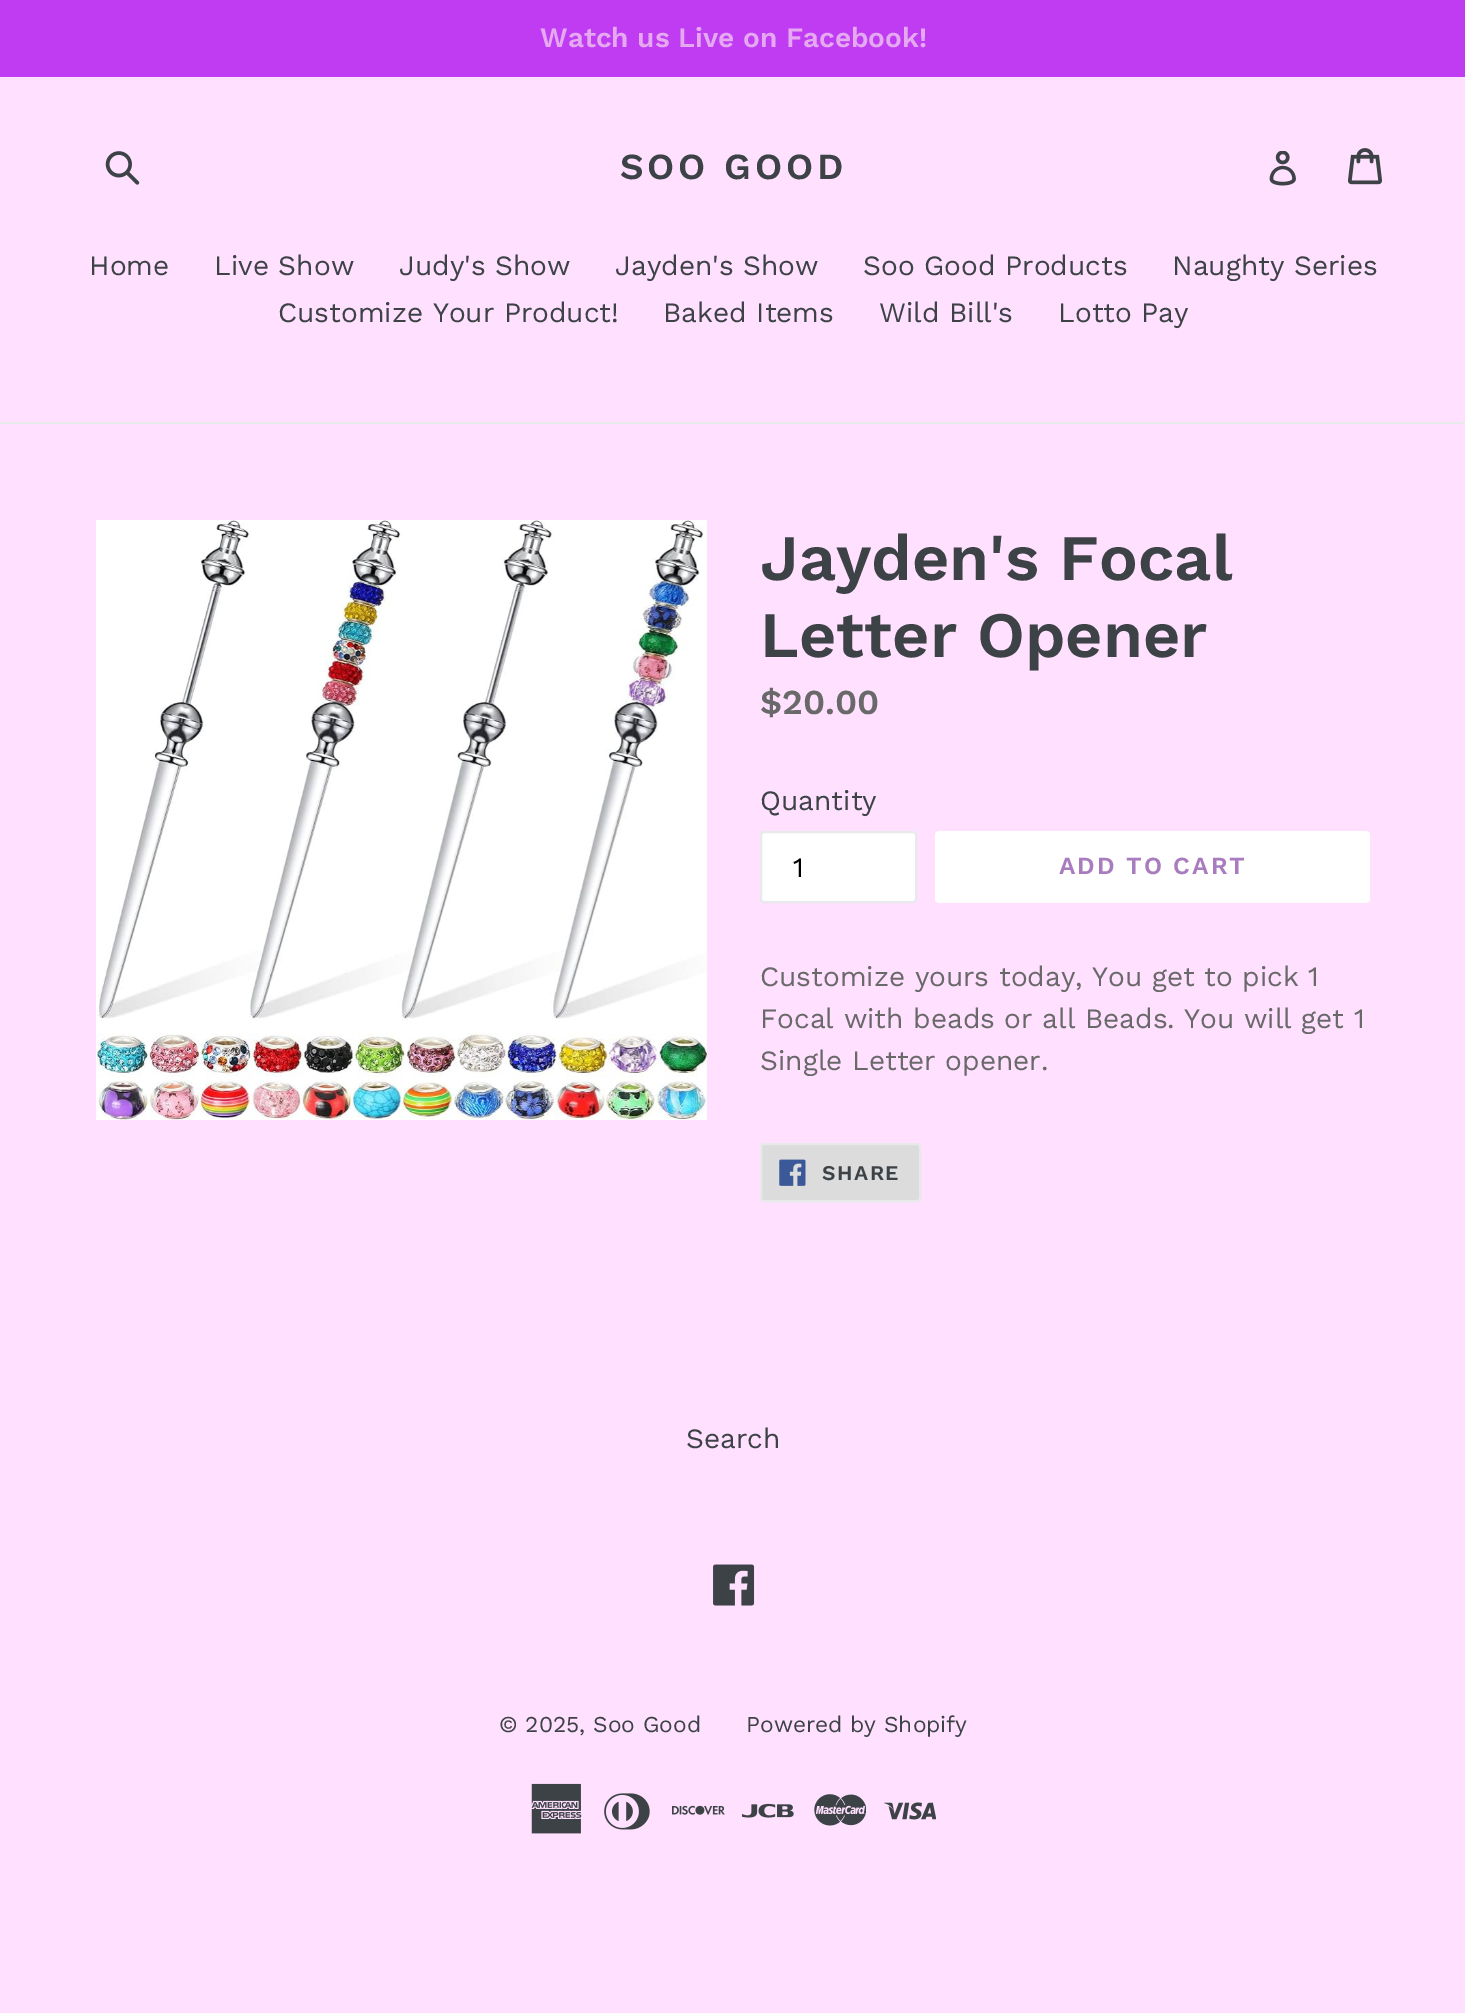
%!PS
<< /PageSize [1465 2013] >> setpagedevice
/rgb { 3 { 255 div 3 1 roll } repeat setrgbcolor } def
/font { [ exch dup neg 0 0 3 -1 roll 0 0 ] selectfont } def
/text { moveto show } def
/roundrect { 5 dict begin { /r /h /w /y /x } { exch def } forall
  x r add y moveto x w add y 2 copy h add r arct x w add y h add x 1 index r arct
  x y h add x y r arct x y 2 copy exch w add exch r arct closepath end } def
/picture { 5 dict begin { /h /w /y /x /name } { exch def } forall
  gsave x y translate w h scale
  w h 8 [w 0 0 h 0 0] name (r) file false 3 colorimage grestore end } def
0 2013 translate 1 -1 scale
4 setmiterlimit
255 224 254 rgb
0 0 1465 2013 rectfill
191 60 243 rgb
0 0 1465 77 rectfill
(img_01.rgb) 105 151 35 34 picture
(img_02.rgb) 1269 151 27 35 picture
(img_03.rgb) 1348 148 34 37 picture
232 233 235 rgb
0 422 1465 2 rectfill
(img_04.rgb) 96 520 611 600 picture
255 255 255 rgb
761 832 155 70 3 roundrect gsave fill grestore
232 233 235 rgb
2 setlinewidth
stroke
255 255 255 rgb
935 831 435 72 4 roundrect fill
220 220 220 rgb
761 1144 159 57 3 roundrect gsave fill grestore
232 233 235 rgb
stroke
(img_05.rgb) 779 1159 27 27 picture
(img_06.rgb) 713 1564 42 42 picture
(img_07.rgb) 531 1783 51 51 picture
(img_08.rgb) 604 1793 46 37 picture
(img_09.rgb) 672 1805 53 10 picture
(img_10.rgb) 742 1803 52 15 picture
(img_11.rgb) 814 1794 52 32 picture
(img_12.rgb) 884 1802 52 18 picture
/WorkSans-SemiBold 28 font
229 168 241 rgb
(Watch us Live on Facebook!) 540 47 text
/WorkSans-SemiBold 36.75 font
61 66 70 rgb
620 179 moveto 3.75 0 (SOO GOOD) ashow
/WorkSans-Regular 28 font
(Home) 89 275 text
(Live Show) 214 275 text
(Judy's Show) 399 275 text
(Jayden's Show) 615 275 text
(Soo Good Products) 863 275 text
(Naughty Series) 1172 275 text
(Customize Your Product!) 278 322 text
(Baked Items) 663 322 text
(Wild Bill's) 879 322 text
(Lotto Pay) 1058 322 text
/WorkSans-SemiBold 64.75 font
(Jayden's Focal) 760 580 text
(Letter Opener) 760 657 text
/WorkSans-SemiBold 35 font
105 105 105 rgb
($20.00) 760 714 text
/WorkSans-Regular 28 font
61 66 70 rgb
(Quantity) 760 810 text
0 0 0 rgb
(1) 793 877 text
/WorkSans-SemiBold 24.5 font
168 124 190 rgb
1059 874 moveto 2 0 (ADD TO CART) ashow
/WorkSans-Regular 28 font
105 105 105 rgb
(Customize yours today, You get to pick 1) 760 986 text
(Focal with beads or all Beads. You will get 1) 760 1028 text
(Single Letter opener.) 760 1070 text
/WorkSans-SemiBold 21 font
61 66 70 rgb
822 1180 moveto 1.5 0 (SHARE) ashow
/WorkSans-Regular 28 font
(Search) 686 1448 text
/WorkSans-Regular 22.75 font
(© 2025, Soo Good) 499 1732 text
(Powered by Shopify) 746 1732 text
showpage
